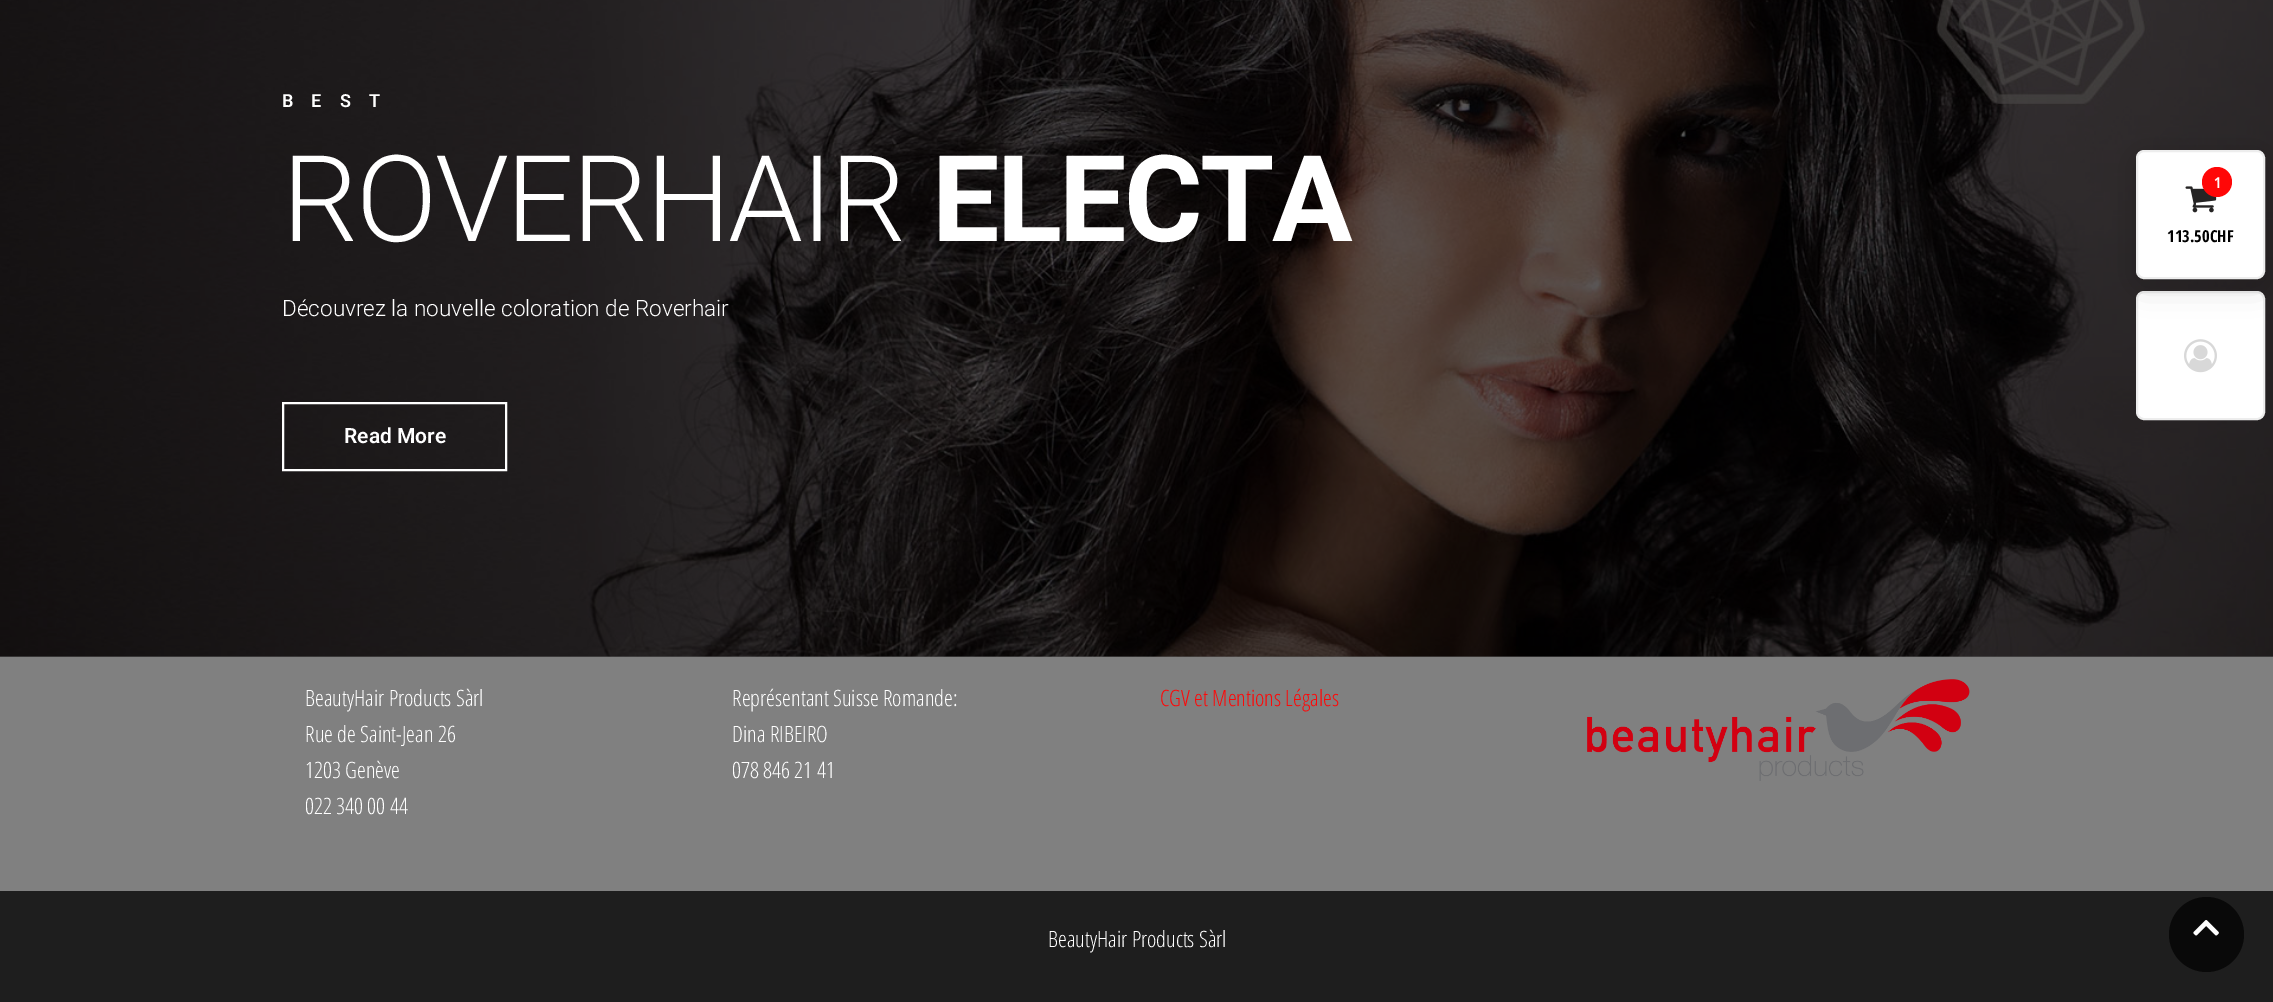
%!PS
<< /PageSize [2273 1002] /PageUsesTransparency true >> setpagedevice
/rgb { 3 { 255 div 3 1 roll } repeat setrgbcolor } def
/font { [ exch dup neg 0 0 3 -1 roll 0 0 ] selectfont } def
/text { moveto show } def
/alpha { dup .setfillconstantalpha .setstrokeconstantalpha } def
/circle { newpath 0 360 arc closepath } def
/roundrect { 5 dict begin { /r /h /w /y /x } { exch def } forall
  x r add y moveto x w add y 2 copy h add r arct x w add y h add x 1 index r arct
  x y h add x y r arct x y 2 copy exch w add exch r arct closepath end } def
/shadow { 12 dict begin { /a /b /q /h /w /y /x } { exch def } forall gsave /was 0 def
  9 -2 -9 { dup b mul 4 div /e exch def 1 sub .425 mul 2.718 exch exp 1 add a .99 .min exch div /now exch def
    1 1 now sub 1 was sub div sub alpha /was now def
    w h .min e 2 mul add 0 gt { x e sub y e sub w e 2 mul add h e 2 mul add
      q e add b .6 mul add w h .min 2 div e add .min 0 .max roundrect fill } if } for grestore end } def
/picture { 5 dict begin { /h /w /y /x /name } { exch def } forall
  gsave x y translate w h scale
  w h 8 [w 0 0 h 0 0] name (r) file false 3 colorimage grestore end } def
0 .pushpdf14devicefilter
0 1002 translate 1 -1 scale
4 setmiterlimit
89 89 89 rgb
0 0 2273 1002 rectfill
(img_01.rgb) 0 0 2273 657 picture
255 255 255 rgb
2 setlinewidth
283 403 223 67 rectstroke
2137 292 127 127 7 roundrect gsave fill grestore
237 237 237 rgb
stroke
0 0 0 rgb
2136 156 129 129 8 15 0.17 shadow
255 255 255 rgb
2137 151 127 127 7 roundrect gsave fill grestore
237 237 237 rgb
stroke
(img_02.rgb) 2185 186 32 27 picture
255 7 7 rgb
2217 182 15 circle fill
(img_03.rgb) 2184 339 33 34 picture
128 128 128 rgb
0 657 2273 234 rectfill
(img_04.rgb) 1587 679 383 102 picture
30 30 30 rgb
0 891 2273 111 rectfill
9 9 9 rgb
2206.5 934.5 37.5 circle fill
(img_05.rgb) 2193 920 26 16 picture
/Roboto-SemiBold 18 font
255 255 255 rgb
282 107 moveto 18 0 (BEST) ashow
/Roboto-Light 120 font
282 241 moveto -2.5 0 (ROVERHAIR) ashow
/Roboto-Bold 120 font
932 241 moveto -2.5 0 (ELECTA) ashow
/Roboto-Light 22.5 font
(Découvrez la nouvelle coloration de Roverhair) 282 316 text
/Roboto-SemiBold 21 font
(Read More) 344 443 text
/OpenSansCondensed-Bold 15 font
(1) 2214 188 text
/OpenSansCondensed-Bold 16.5 font
0 0 0 rgb
(113.50CHF) 2167 242 text
/OpenSansCondensed-Light 22.5 font
255 255 255 rgb
(BeautyHair Products Sàrl) 305 706 text
(Rue de Saint-Jean 26) 305 742 text
(1203 Genève) 305 778 text
(022 340 00 44) 305 814 text
(Représentant Suisse Romande:) 732 706 text
(Dina RIBEIRO) 732 742 text
(078 846 21 41) 732 778 text
255 7 7 rgb
(CGV et Mentions Légales) 1160 706 text
255 255 255 rgb
(BeautyHair Products Sàrl) 1048 947 text
.poppdf14devicefilter showpage
